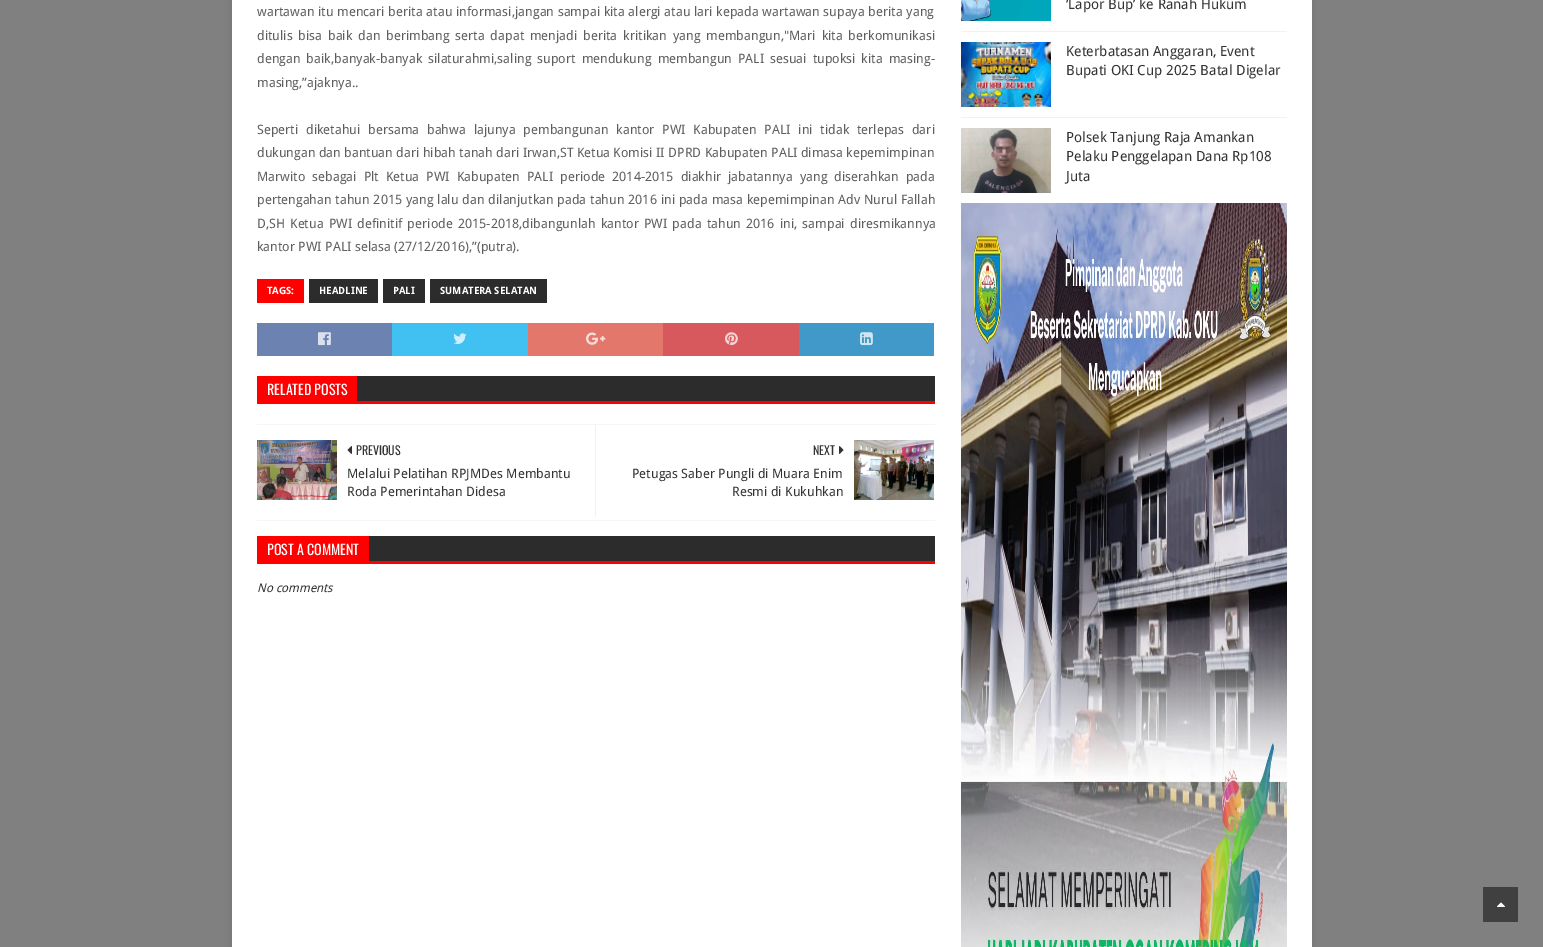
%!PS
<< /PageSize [1543 947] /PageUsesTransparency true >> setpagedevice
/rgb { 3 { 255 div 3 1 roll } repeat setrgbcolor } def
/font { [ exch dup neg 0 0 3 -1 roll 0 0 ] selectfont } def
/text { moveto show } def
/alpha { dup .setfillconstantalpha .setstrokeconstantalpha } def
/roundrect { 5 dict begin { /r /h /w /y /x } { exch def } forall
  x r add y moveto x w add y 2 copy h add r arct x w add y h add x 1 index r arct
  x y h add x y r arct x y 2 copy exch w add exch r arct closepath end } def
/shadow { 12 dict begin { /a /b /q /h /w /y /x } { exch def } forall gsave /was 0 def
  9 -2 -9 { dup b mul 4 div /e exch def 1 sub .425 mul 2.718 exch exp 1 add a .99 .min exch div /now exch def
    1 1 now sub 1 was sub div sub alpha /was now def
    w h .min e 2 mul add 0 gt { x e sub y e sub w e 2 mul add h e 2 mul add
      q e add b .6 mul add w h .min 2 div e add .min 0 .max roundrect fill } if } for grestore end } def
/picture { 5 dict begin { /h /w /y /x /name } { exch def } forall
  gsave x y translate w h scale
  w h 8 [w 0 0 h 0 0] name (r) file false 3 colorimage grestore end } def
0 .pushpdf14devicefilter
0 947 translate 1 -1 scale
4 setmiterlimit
128 128 128 rgb
0 0 1543 947 rectfill
50 50 50 rgb
232 -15 1080 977 0 5 0.17 shadow
255 255 255 rgb
232 0 1080 947 rectfill
255 0 0 rgb
257 279 47 24 rectfill
44 44 44 rgb
309 279 69 24 rectfill
383 279 42 24 rectfill
430 279 117 24 rectfill
108 131 178 rgb
257 323 135 33 rectfill
(img_01.rgb) 318 332 13 14 picture
64 193 242 rgb
392 323 136 33 rectfill
(img_02.rgb) 453 333 14 11 picture
228 119 107 rgb
528 323 135 33 rectfill
(img_03.rgb) 586 332 20 13 picture
215 89 93 rgb
663 323 136 33 rectfill
(img_04.rgb) 725 332 13 14 picture
64 153 200 rgb
799 323 135 33 rectfill
(img_05.rgb) 860 332 13 14 picture
44 44 44 rgb
357 376 578 25 rectfill
255 0 0 rgb
257 401 678 3 rectfill
257 376 100 25 rectfill
245 245 245 rgb
257 424 678 1 rectfill
257 520 678 1 rectfill
242 242 242 rgb
595 425 1 92 rectfill
(img_06.rgb) 257 440 80 60 picture
(img_07.rgb) 347 446 5 8 picture
(img_08.rgb) 839 446 5 8 picture
(img_09.rgb) 854 440 80 60 picture
44 44 44 rgb
369 536 566 25 rectfill
255 0 0 rgb
257 561 678 3 rectfill
257 536 112 25 rectfill
(img_10.rgb) 961 0 90 21 picture
242 242 242 rgb
961 31 326 1 rectfill
(img_11.rgb) 961 42 90 65 picture
961 117 326 1 rectfill
(img_12.rgb) 961 128 90 65 picture
(img_13.rgb) 961 203 326 744 picture
64 64 64 rgb
1483 887 35 35 rectfill
(img_14.rgb) 1497 902 8 5 picture
/DroidSans-Regular 13 font
94 94 94 rgb
257 16 moveto 0.25 0 32 (wartawan itu mencari berita atau informasi,jangan sampai kita alergi atau lari kepada wartawan supaya berita yang) widthshow
257 40 moveto 2.4 0 32 (ditulis bisa baik dan berimbang serta dapat menjadi berita kritikan yang membangun,"Mari kita berkomunikasi) widthshow
257 63 moveto 2.6 0 32 (dengan baik,banyak-banyak silaturahmi,saling suport mendukung membangun PALI sesuai tupoksi kita masing-) widthshow
(masing,”ajaknya..) 257 87 text
257 134 moveto 4.4 0 32 (Seperti diketahui bersama bahwa lajunya pembangunan kantor PWI Kabupaten PALI ini tidak terlepas dari) widthshow
(dukungan dan bantuan dari hibah tanah dari Irwan,ST Ketua Komisi II DPRD Kabupaten PALI dimasa kepemimpinan) 257 157 text
257 181 moveto 3.6 0 32 (Marwito sebagai Plt Ketua PWI Kabupaten PALI periode 2014-2015 diakhir jabatannya yang diserahkan pada) widthshow
257 204 moveto 0.4 0 32 (pertengahan tahun 2015 yang lalu dan dilanjutkan pada tahun 2016 ini pada masa kepemimpinan Adv Nurul Fallah) widthshow
(D,SH) 257 228 text
290 228 moveto 1.75 0 32 (Ketua PWI definitif periode 2015-2018,dibangunlah kantor PWI pada tahun 2016 ini, sampai diresmikannya) widthshow
(kantor PWI PALI selasa \(27/12/2016\),”\(putra\).) 257 251 text
/DroidSans-Bold 10 font
255 255 255 rgb
(TAGS:) 267 294 text
(HEADLINE) 319 294 text
(PALI) 393 294 text
(SUMATERA SELATAN) 440 294 text
/Oswald-Regular 14 font
(RELATED POSTS) 267 395 text
/Oswald-Regular 12 font
51 51 51 rgb
(PREVIOUS) 356 455 text
/DroidSans-Regular 13 font
(Melalui Pelatihan RPJMDes Membantu) 347 478 text
(Roda Pemerintahan Didesa) 347 496 text
/Oswald-Regular 12 font
(NEXT) 813 455 text
/DroidSans-Regular 13 font
(Petugas Saber Pungli di Muara Enim) 632 478 text
(Resmi di Kukuhkan) 732 496 text
/Oswald-Regular 14 font
255 255 255 rgb
(POST A COMMENT) 267 555 text
/DroidSans-Italic 12 font
51 51 51 rgb
(No comments) 257 592 text
/DroidSans-Regular 14 font
(‘Lapor Bup’ ke Ranah Hukum) 1066 9 text
(Keterbatasan Anggaran, Event) 1066 56 text
(Bupati OKI Cup 2025 Batal Digelar) 1066 75 text
(Polsek Tanjung Raja Amankan) 1066 142 text
(Pelaku Penggelapan Dana Rp108) 1066 161 text
(Juta) 1066 181 text
.poppdf14devicefilter showpage
